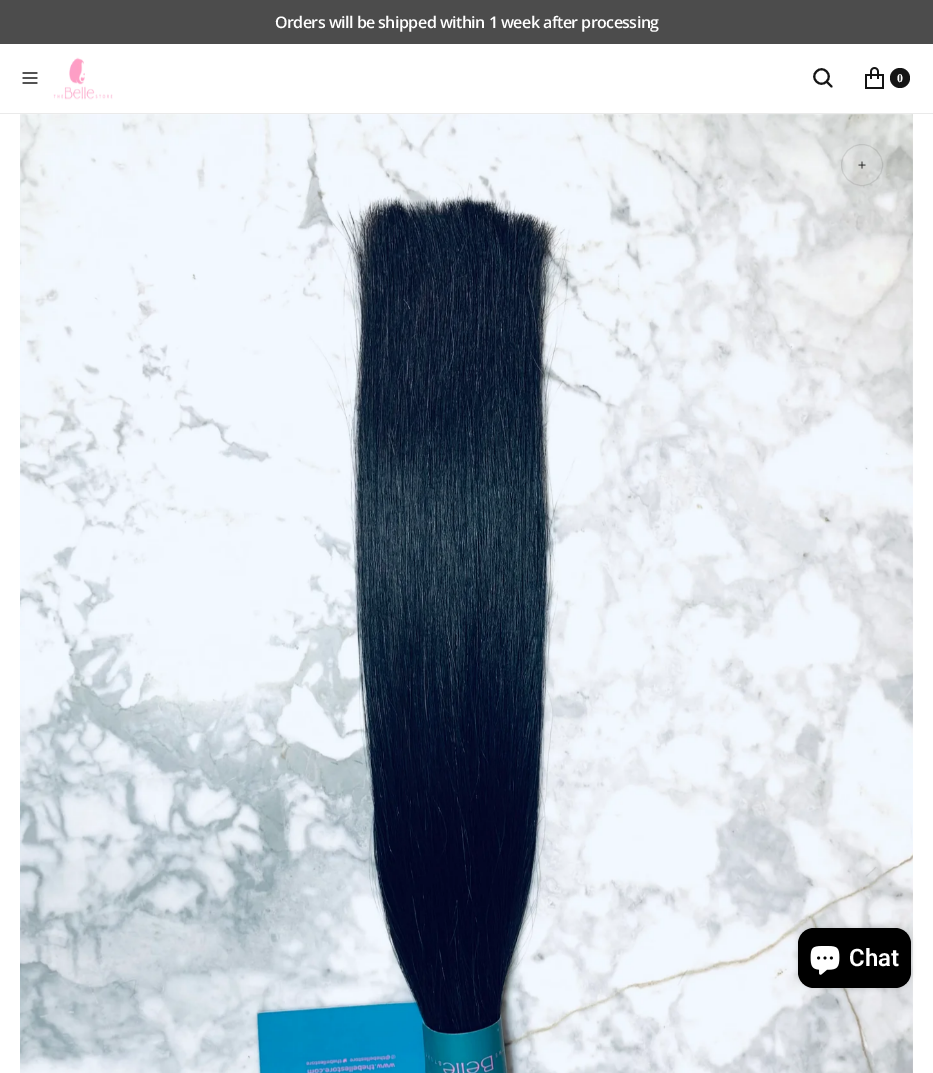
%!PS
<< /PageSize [933 1073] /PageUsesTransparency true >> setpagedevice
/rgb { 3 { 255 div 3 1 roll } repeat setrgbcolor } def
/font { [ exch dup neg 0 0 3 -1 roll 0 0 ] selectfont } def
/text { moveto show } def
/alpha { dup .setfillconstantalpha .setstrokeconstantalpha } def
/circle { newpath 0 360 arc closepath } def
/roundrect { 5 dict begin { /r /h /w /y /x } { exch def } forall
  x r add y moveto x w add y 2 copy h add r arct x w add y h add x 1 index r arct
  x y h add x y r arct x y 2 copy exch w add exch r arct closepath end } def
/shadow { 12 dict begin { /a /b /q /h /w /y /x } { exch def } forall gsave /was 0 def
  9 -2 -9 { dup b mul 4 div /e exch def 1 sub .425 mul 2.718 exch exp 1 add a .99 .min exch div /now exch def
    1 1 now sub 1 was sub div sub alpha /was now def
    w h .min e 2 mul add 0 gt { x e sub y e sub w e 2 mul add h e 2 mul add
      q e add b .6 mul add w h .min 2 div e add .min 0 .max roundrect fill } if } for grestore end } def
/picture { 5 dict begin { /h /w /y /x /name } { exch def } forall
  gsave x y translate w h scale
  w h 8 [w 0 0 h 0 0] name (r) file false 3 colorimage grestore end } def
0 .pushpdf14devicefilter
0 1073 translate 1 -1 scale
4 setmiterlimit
255 255 255 rgb
0 0 933 1073 rectfill
76 76 76 rgb
0 0 933 44 rectfill
234 234 234 rgb
0 113 933 1 rectfill
(img_01.rgb) 22 72 16 12 picture
(img_02.rgb) 53 57 60 43 picture
20 20 20 rgb
2 setlinewidth
1 setlinecap
1 setlinejoin
831.5 86.5 moveto -5 -5 rlineto 826.5 81.5 moveto 7 -6.5 -3.5 -17 -10 -10 rcurveto -7 6.5 3.5 17 10 10 rcurveto closepath stroke
(img_03.rgb) 865 67 19 22 picture
900 78 10 circle fill
(img_04.rgb) 20 114 893 959 picture
0.1 alpha
1 setlinewidth
0 setlinecap
0 setlinejoin
862 165 20.5 circle stroke
1 alpha
(img_05.rgb) 858 161 8 8 picture
0 0 0 rgb
798 928 113 60 16 2.5 0.15 shadow
798 928 113 60 16 roundrect fill
(img_06.rgb) 810 946 30 29 picture
/OpenSans-SemiBold 16 font
255 255 255 rgb
275 28 moveto -0.55 0 (Orders will be shipped within 1 week after processing) ashow
/LiberationSerif-Bold 12 font
897 82 moveto -0.55 0 (0) ashow
/Roboto-SemiBold 24 font
(Chat) 849 966 text
.poppdf14devicefilter showpage
